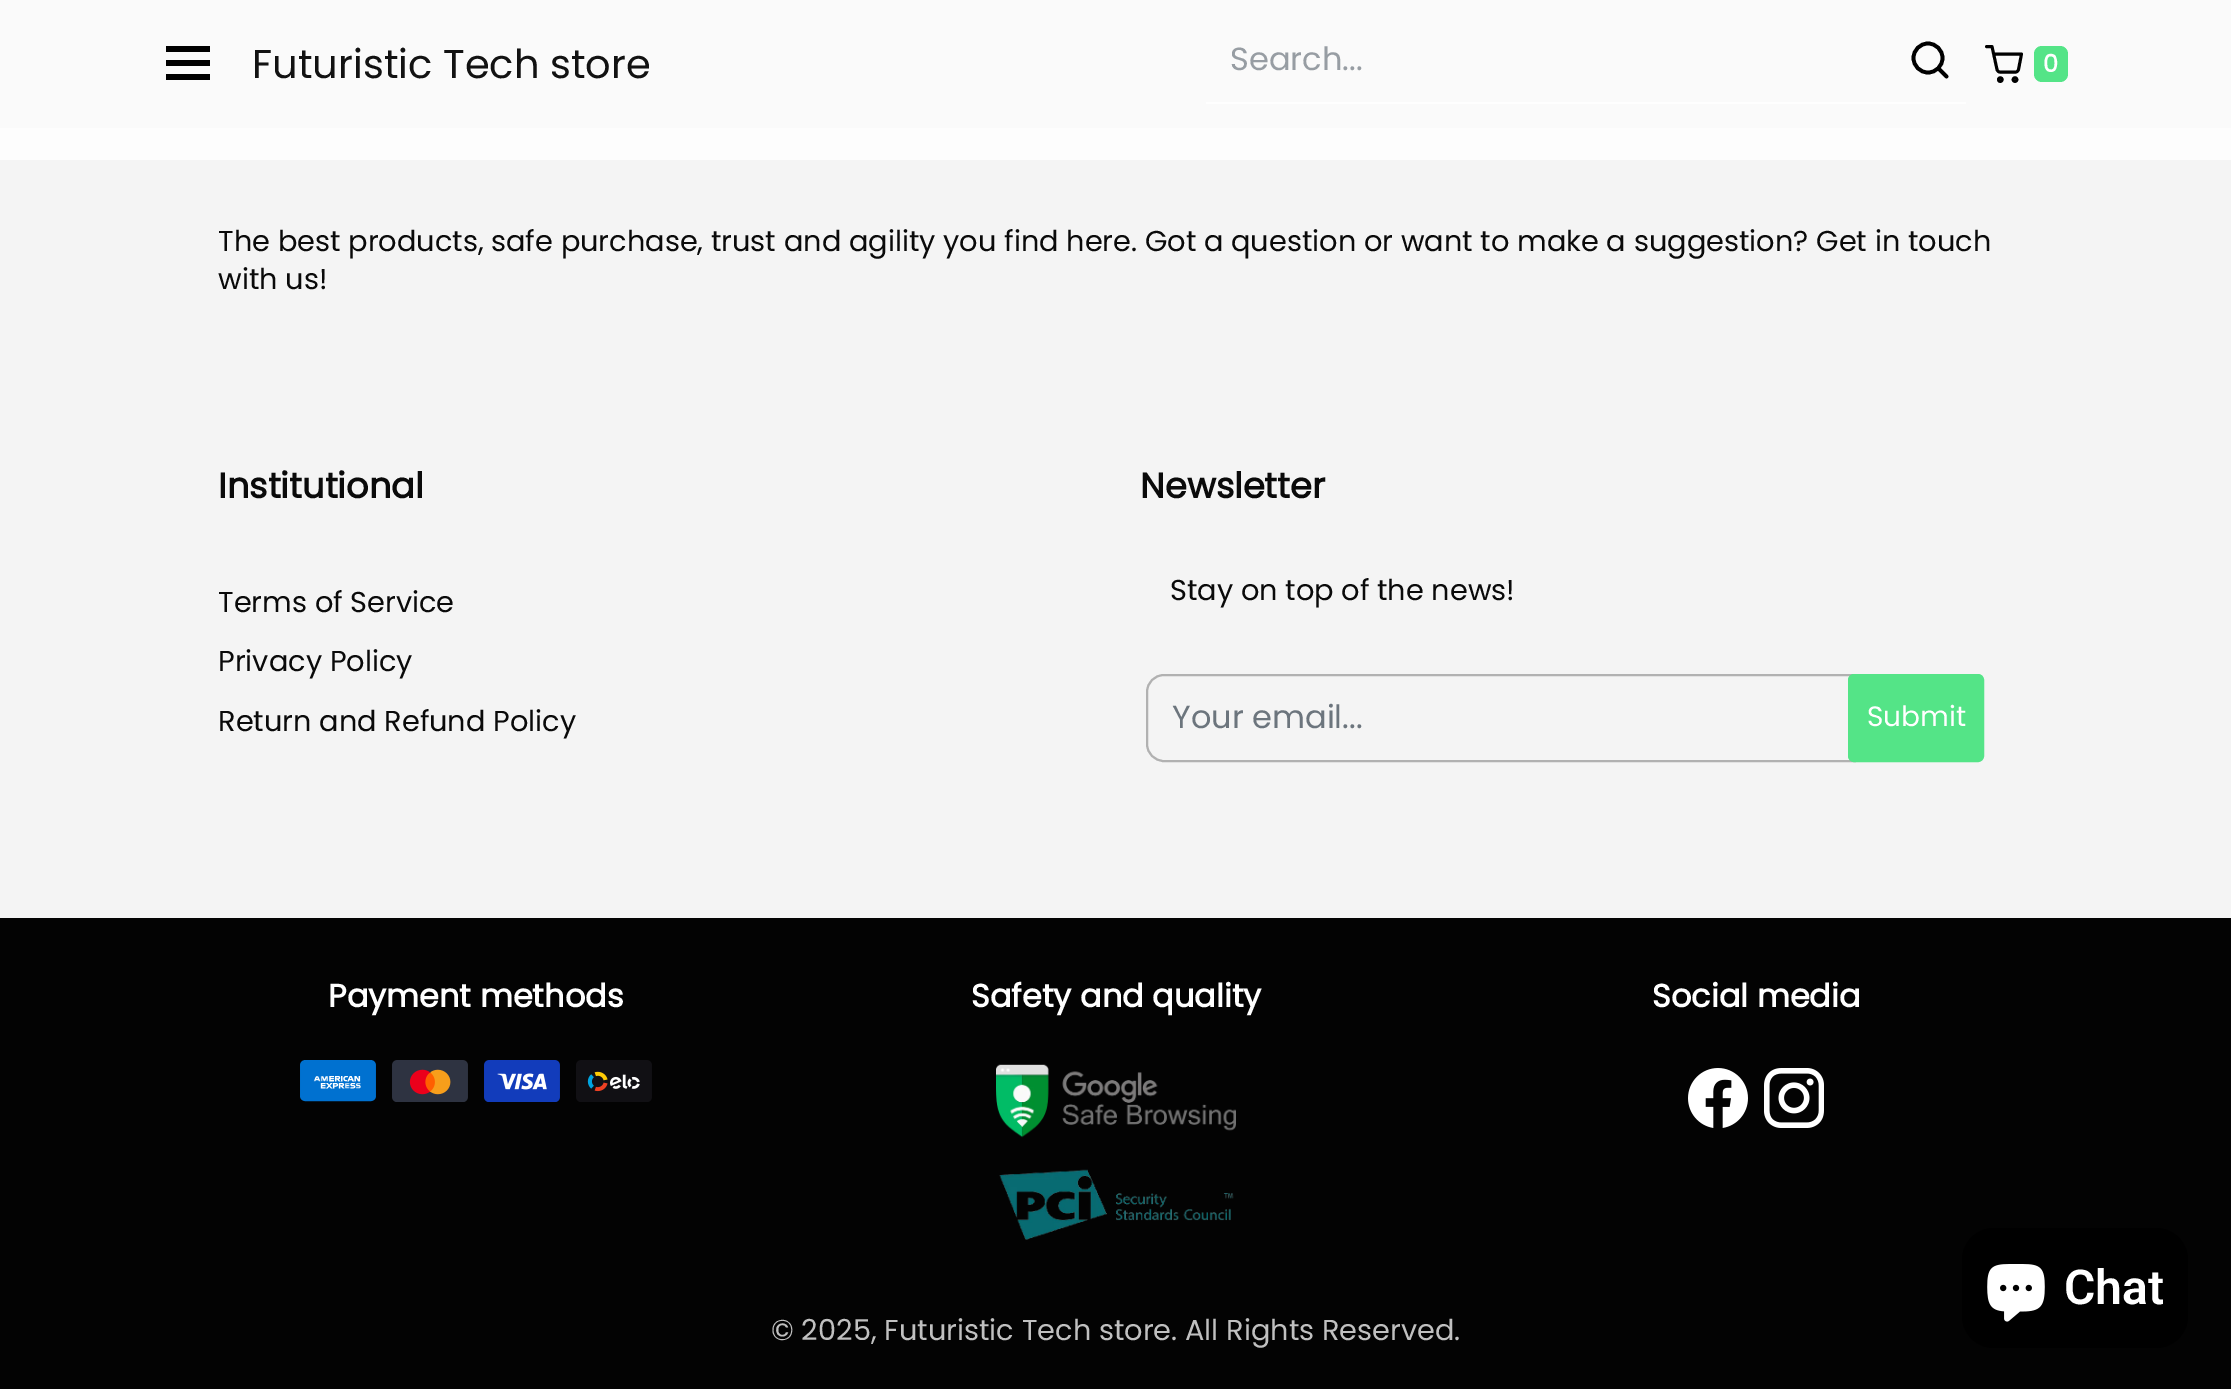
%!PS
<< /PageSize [2231 1389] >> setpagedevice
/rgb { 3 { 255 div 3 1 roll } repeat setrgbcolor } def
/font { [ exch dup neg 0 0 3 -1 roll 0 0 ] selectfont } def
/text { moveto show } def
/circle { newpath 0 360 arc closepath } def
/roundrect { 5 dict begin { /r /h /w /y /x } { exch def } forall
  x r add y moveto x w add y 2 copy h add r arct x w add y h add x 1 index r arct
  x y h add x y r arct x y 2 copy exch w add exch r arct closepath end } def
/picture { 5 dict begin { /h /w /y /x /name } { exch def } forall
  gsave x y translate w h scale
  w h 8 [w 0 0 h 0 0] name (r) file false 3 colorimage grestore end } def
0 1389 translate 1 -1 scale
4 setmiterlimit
244 244 244 rgb
0 0 2231 1389 rectfill
250 250 250 rgb
0 0 2231 128 rectfill
0 0 0 rgb
166 46 44 6 rectfill
166 60 44 6 rectfill
166 74 44 6 rectfill
254 254 254 rgb
1206 102 760 2 rectfill
0 0 0 rgb
3.7 setlinewidth
1928 58 14.5 circle stroke
1 setlinecap
1 setlinejoin
1946.5 76.5 moveto -8 -8 rlineto stroke
2.9 setlinewidth
0 setlinecap
0 setlinejoin
2000.3 79.6 1.8 circle stroke
2015 79.6 1.8 circle stroke
1 setlinecap
1 setlinejoin
1986.5 46.5 moveto 5.5 0 rlineto 5 23 rlineto 0.5 1.5 2 3 3.5 2.5 rcurveto 14.5 0 rlineto 1.5 0.5 3 -1 3.5 -2.5 rcurveto 3 -15.5 rlineto -26.5 0 rlineto stroke
84 228 135 rgb
2034 46 34 36 8 roundrect fill
253 253 253 rgb
0 128 2231 32 rectfill
177 177 177 rgb
2 setlinewidth
0 setlinecap
0 setlinejoin
1147 675 724 86 17 roundrect stroke
84 228 135 rgb
1849 675 134 86 5 roundrect gsave fill grestore
stroke
3 3 3 rgb
0 918 2231 471 rectfill
(img_01.rgb) 300 1060 76 42 picture
(img_02.rgb) 392 1060 76 42 picture
(img_03.rgb) 484 1060 76 42 picture
(img_04.rgb) 576 1060 76 42 picture
(img_05.rgb) 996 1064 240 74 picture
(img_06.rgb) 999 1169 235 71 picture
(img_07.rgb) 1688 1068 60 60 picture
(img_08.rgb) 1764 1068 60 60 picture
0 0 0 rgb
1962 1228 226 120 32 roundrect fill
(img_09.rgb) 1987 1264 58 58 picture
/Poppins-Regular 40 font
18 18 18 rgb
(Futuristic Tech store) 252 78 text
/Poppins-Regular 32 font
151 157 163 rgb
(Search...) 1230 70 text
/Poppins-Bold 24 font
255 255 255 rgb
(0) 2043 72 text
/Poppins-Regular 28.8 font
10 10 10 rgb
(The best products, safe purchase, trust and agility you find here. Got a question or want to make a suggestion? Get in touch) 218 251 text
(with us!) 218 289 text
/Poppins-Bold 35.25 font
(Institutional) 218 498 text
/Poppins-Regular 28.8 font
(Terms of Service) 218 612 text
(Privacy Policy) 218 671 text
(Return and Refund Policy) 218 731 text
/Poppins-Bold 35.25 font
(Newsletter) 1140 498 text
/Poppins-Regular 28.8 font
(Stay on top of the news!) 1170 600 text
/Poppins-Regular 32 font
108 117 125 rgb
(Your email...) 1172 728 text
/Poppins-Regular 28 font
255 255 255 rgb
(Submit) 1867 726 text
/Poppins-Bold 32 font
(Payment methods) 328 1007 text
(Safety and quality) 971 1007 text
(Social media) 1652 1007 text
/Poppins-Regular 28.8 font
192 192 192 rgb
(© 2025, Futuristic Tech store. All Rights Reserved.) 771 1340 text
/Roboto-SemiBold 48 font
255 255 255 rgb
(Chat) 2064 1304 text
showpage
